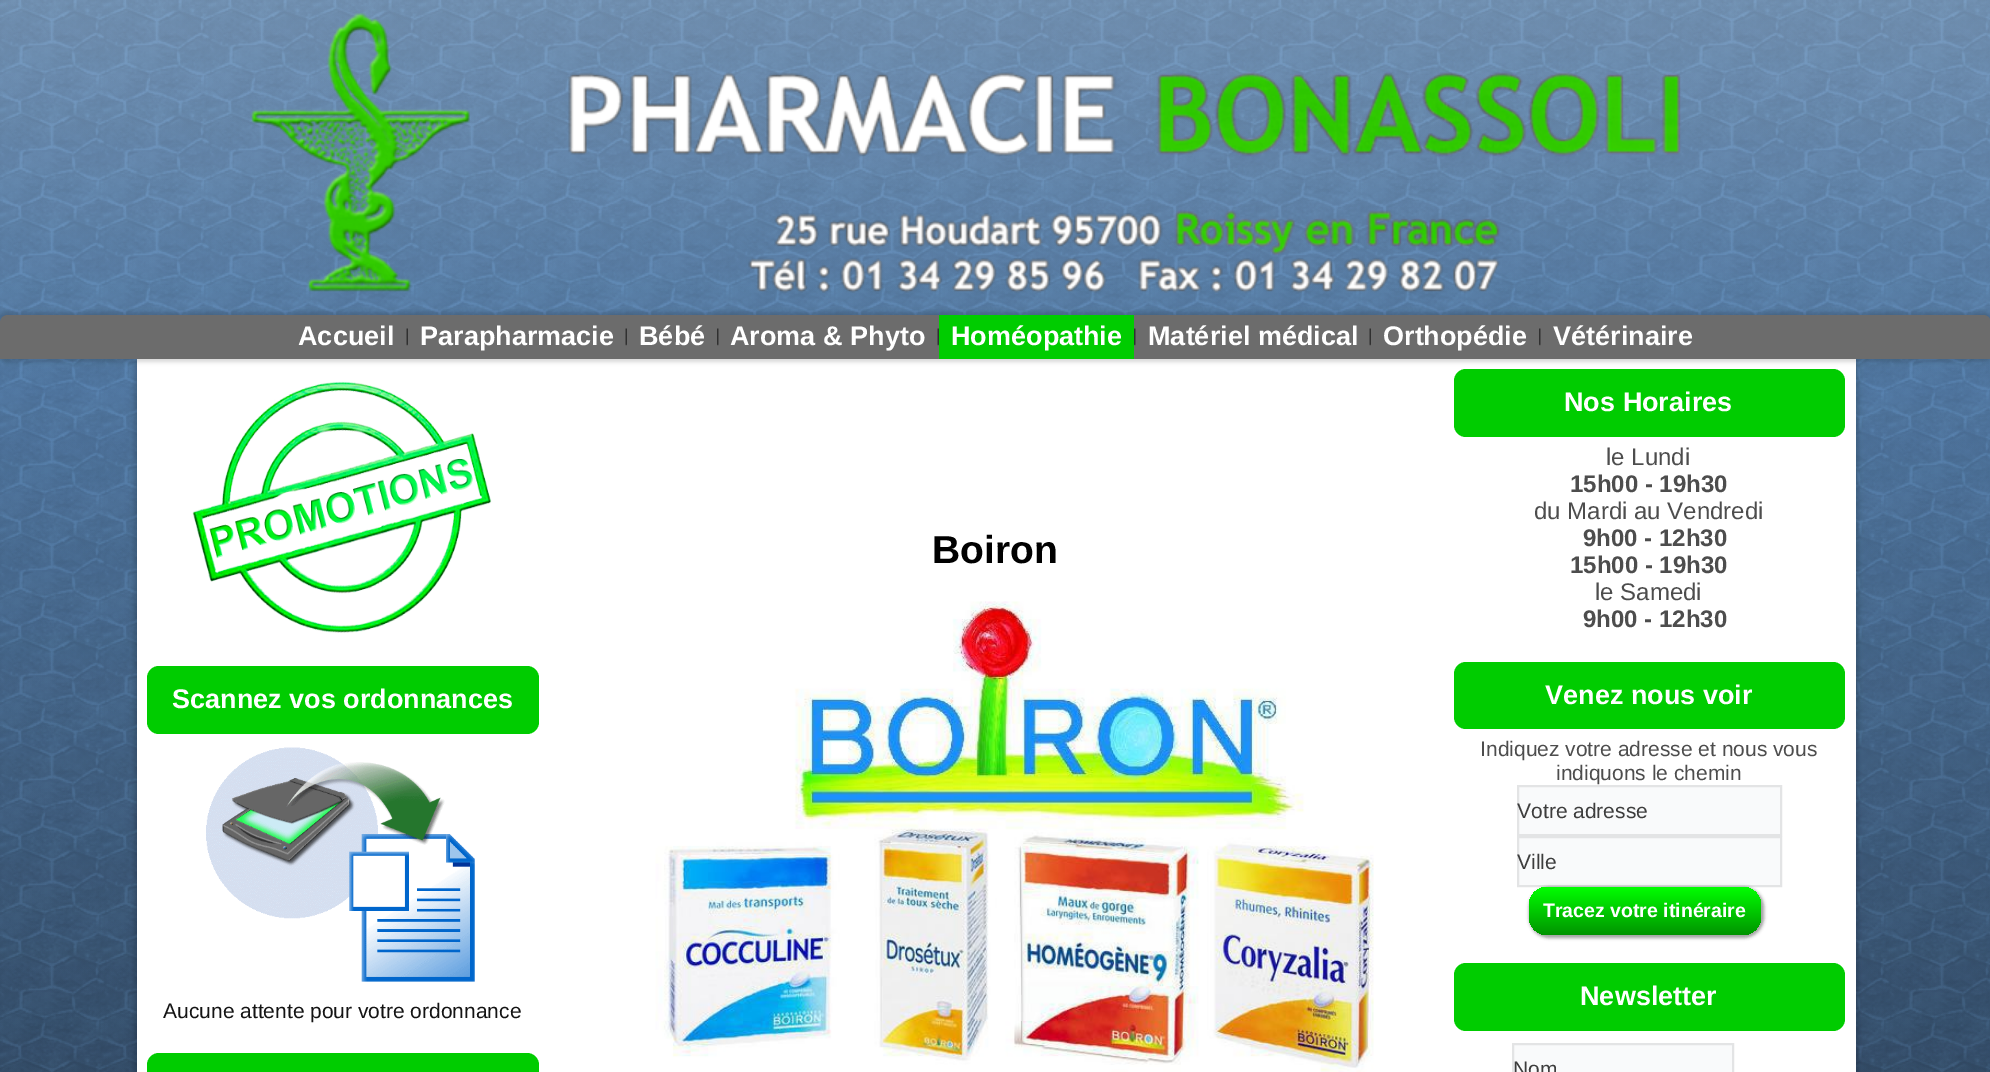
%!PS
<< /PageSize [1990 1072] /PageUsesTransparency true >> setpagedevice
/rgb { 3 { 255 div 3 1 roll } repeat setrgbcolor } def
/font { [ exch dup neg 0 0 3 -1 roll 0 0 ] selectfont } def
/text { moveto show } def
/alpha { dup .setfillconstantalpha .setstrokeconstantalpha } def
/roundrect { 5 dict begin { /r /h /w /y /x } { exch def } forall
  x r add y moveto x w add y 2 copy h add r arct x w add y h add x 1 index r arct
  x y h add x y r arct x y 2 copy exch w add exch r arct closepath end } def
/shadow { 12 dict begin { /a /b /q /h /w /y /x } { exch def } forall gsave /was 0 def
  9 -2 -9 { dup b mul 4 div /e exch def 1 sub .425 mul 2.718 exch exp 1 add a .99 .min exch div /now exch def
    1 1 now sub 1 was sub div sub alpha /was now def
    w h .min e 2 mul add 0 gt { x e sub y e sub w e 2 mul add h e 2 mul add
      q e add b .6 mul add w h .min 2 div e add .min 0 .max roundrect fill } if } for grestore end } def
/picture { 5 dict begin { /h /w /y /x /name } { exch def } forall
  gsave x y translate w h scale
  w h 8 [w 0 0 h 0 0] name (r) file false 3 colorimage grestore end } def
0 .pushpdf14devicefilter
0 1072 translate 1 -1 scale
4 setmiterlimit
255 255 255 rgb
0 0 1990 1072 rectfill
(img_01.rgb) 0 0 1990 1072 picture
(img_02.rgb) 251 13 1430 280 picture
0 0 0 rgb
134 356 1725 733 11 2 0.15 shadow
255 255 255 rgb
137 359 1719 713 rectfill
0 0 0 rgb
-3 312 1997 50 11 2 0.15 shadow
108 108 108 rgb
8 315 moveto 1975 0 rlineto 4.5 0 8 3.5 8 8 rcurveto 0 36 rlineto -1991 0 rlineto 0 -36 rlineto 0 -4.5 3.5 -8 8 -8 rcurveto closepath fill
(img_03.rgb) 406 328 2 18 picture
(img_03.rgb) 625 328 2 18 picture
(img_04.rgb) 717 328 2 18 picture
(img_03.rgb) 937 328 2 18 picture
0 204 0 rgb
939 315 195 44 rectfill
(img_04.rgb) 1134 328 2 18 picture
(img_03.rgb) 1369 328 2 18 picture
(img_04.rgb) 1539 328 2 18 picture
(img_05.rgb) 655 601 719 471 picture
1454 369 391 68 12 roundrect fill
1454 662 391 67 12 roundrect fill
249 250 251 rgb
1518 786 moveto 263 0 rlineto 0 49 rlineto -263 0 rlineto closepath gsave fill grestore
227 228 229 rgb
2 setlinewidth
stroke
249 250 251 rgb
1518 837 moveto 263 0 rlineto 0 49 rlineto -263 0 rlineto closepath gsave fill grestore
227 228 229 rgb
stroke
0 0 0 rgb
1529 887 235 51 20 1.5 0.35 shadow
gsave 1529 887 232 48 18 roundrect clip newpath
<< /ShadingType 2 /ColorSpace /DeviceRGB /Coords [1645 887 1645 935] /Extend [true true] /Function << /FunctionType 2 /Domain [0 1] /C0 [0 1 0] /C1 [0 0.58 0] /N 1 >> >> shfill grestore
0 204 0 rgb
1454 963 391 68 12 roundrect fill
249 250 251 rgb
1513 1044 moveto 220 0 rlineto 0 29 rlineto -220 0 rlineto closepath gsave fill grestore
227 228 229 rgb
stroke
(img_06.rgb) 192 381 300 252 picture
0 204 0 rgb
147 666 392 68 12 roundrect fill
(img_07.rgb) 206 747 269 235 picture
147 1053 392 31 12 roundrect fill
/LiberationSans-Bold 27 font
255 255 255 rgb
(Accueil) 298 345 text
(Parapharmacie) 420 345 text
(Bébé) 639 345 text
(Aroma & Phyto) 730 345 text
(Homéopathie) 951 345 text
(Matériel médical) 1148 345 text
(Orthopédie) 1383 345 text
(Vétérinaire) 1553 345 text
/LiberationSans-Bold 39 font
0 0 0 rgb
(Boiron) 932 563 text
/LiberationSans-Bold 27 font
255 255 255 rgb
(Nos Horaires) 1564 411 text
/LiberationSans-Regular 24 font
77 77 77 rgb
(le Lundi) 1606 465 text
/LiberationSans-Bold 24 font
(15h00 - 19h30) 1570 492 text
/LiberationSans-Regular 24 font
(du Mardi au Vendredi) 1534 519 text
/LiberationSans-Bold 24 font
(9h00 - 12h30) 1583 546 text
(15h00 - 19h30) 1570 573 text
/LiberationSans-Regular 24 font
(le Samedi) 1595 600 text
/LiberationSans-Bold 24 font
(9h00 - 12h30) 1583 627 text
/LiberationSans-Bold 27 font
255 255 255 rgb
(Venez nous voir) 1545 704 text
/LiberationSans-Regular 21 font
77 77 77 rgb
(Indiquez votre adresse et nous vous) 1480 756 text
(indiquons le chemin) 1556 780 text
61 61 61 rgb
(Votre adresse) 1517 818 text
(Ville) 1517 869 text
/LiberationSans-Bold 19.5 font
255 255 255 rgb
(Tracez votre itinéraire) 1543 917 text
/LiberationSans-Bold 27 font
(Newsletter) 1580 1005 text
/LiberationSans-Regular 21 font
61 61 61 rgb
(Nom) 1513 1076 text
/LiberationSans-Bold 27 font
255 255 255 rgb
(Scannez vos ordonnances) 172 708 text
/LiberationSans-Regular 21 font
20 20 20 rgb
(Aucune attente pour votre ordonnance) 163 1018 text
.poppdf14devicefilter showpage
